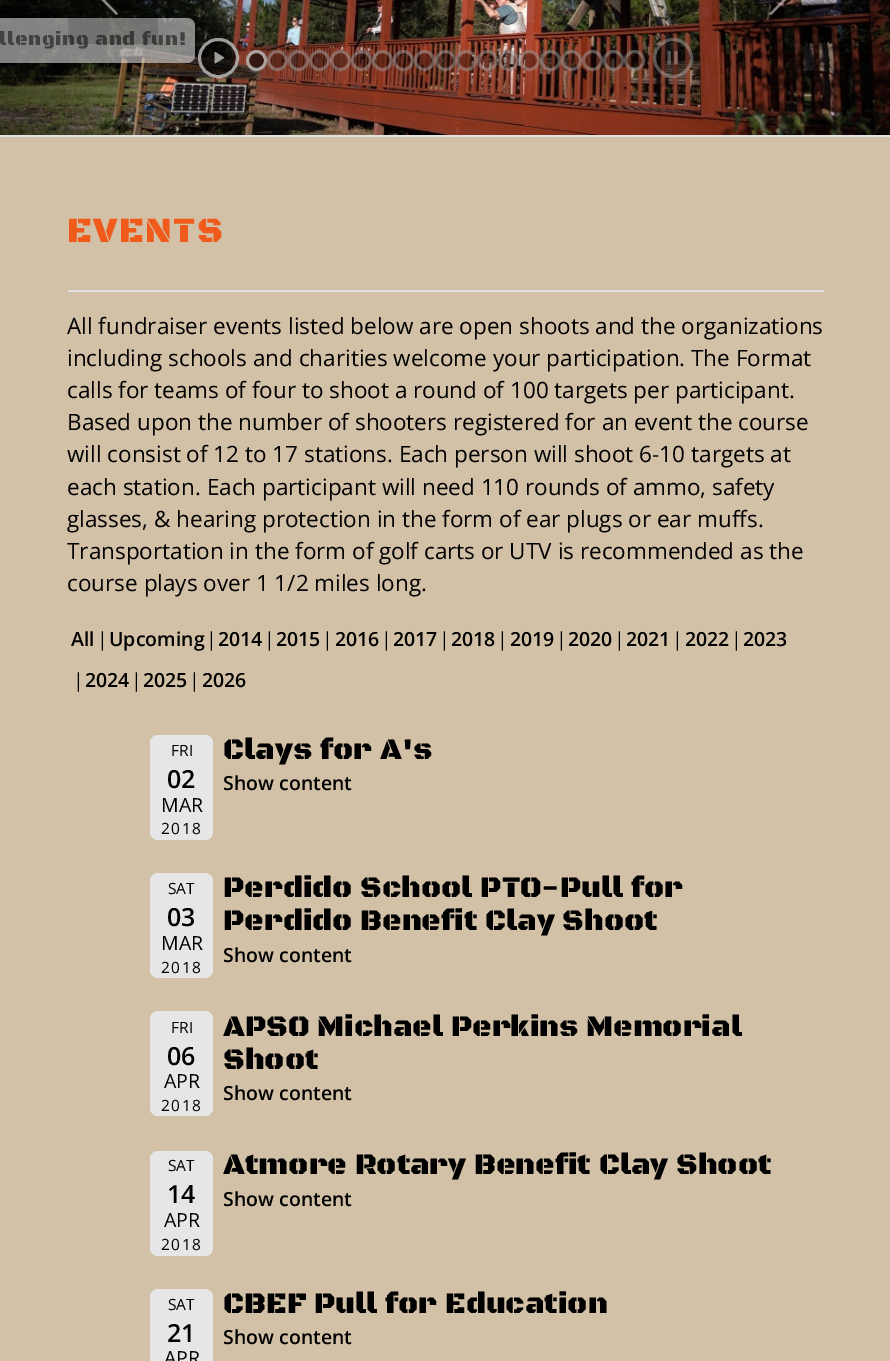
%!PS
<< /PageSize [890 1361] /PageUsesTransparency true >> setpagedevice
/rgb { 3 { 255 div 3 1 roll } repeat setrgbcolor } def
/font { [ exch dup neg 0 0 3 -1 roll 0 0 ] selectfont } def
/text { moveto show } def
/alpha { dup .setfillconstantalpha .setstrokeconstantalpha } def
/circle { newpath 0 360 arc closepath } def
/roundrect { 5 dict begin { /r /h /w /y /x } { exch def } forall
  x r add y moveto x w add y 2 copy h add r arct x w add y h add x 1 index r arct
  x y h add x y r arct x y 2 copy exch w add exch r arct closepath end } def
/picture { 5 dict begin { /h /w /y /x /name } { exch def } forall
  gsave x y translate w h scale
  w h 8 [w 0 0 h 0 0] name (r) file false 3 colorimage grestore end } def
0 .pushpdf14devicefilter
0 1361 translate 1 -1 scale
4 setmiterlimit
210 193 167 rgb
0 0 890 1361 rectfill
(img_03.rgb) 0 0 890 135 picture
0.15 alpha
0 0 0 rgb
734 -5 90 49 5 roundrect fill
1 alpha
(img_02.rgb) 769 0 17 15 picture
0.51 alpha
255 255 255 rgb
0 18 moveto 187 0 rlineto 4.5 0 8 3.5 8 8 rcurveto 0 29 rlineto 0 4.5 -3.5 8 -8 8 rcurveto -187 0 rlineto closepath fill
0.6 alpha
0 0 0 rgb
198 38 41 40 20 roundrect fill
255 255 255 rgb
3 setlinewidth
199.5 39.5 38 37 18.5 roundrect stroke
1 alpha
(img_04.rgb) 214 51 11 13 picture
0.6 alpha
0 0 0 rgb
256.5 60.5 10.5 circle fill
255 255 255 rgb
256.5 60.5 9 circle stroke
0.3 alpha
0 0 0 rgb
277.5 60.5 10.5 circle fill
255 255 255 rgb
277.5 60.5 9 circle stroke
0 0 0 rgb
298.5 60.5 10.5 circle fill
255 255 255 rgb
298.5 60.5 9 circle stroke
0 0 0 rgb
319.5 60.5 10.5 circle fill
255 255 255 rgb
319.5 60.5 9 circle stroke
0 0 0 rgb
340.5 60.5 10.5 circle fill
255 255 255 rgb
340.5 60.5 9 circle stroke
0 0 0 rgb
361.5 60.5 10.5 circle fill
255 255 255 rgb
361.5 60.5 9 circle stroke
0 0 0 rgb
382.5 60.5 10.5 circle fill
255 255 255 rgb
382.5 60.5 9 circle stroke
0 0 0 rgb
403.5 60.5 10.5 circle fill
255 255 255 rgb
403.5 60.5 9 circle stroke
0 0 0 rgb
424.5 60.5 10.5 circle fill
255 255 255 rgb
424.5 60.5 9 circle stroke
0 0 0 rgb
445.5 60.5 10.5 circle fill
255 255 255 rgb
445.5 60.5 9 circle stroke
0 0 0 rgb
466.5 60.5 10.5 circle fill
255 255 255 rgb
466.5 60.5 9 circle stroke
0 0 0 rgb
487.5 60.5 10.5 circle fill
255 255 255 rgb
487.5 60.5 9 circle stroke
0 0 0 rgb
508.5 60.5 10.5 circle fill
255 255 255 rgb
508.5 60.5 9 circle stroke
0 0 0 rgb
529.5 60.5 10.5 circle fill
255 255 255 rgb
529.5 60.5 9 circle stroke
0 0 0 rgb
550.5 60.5 10.5 circle fill
255 255 255 rgb
550.5 60.5 9 circle stroke
0 0 0 rgb
571.5 60.5 10.5 circle fill
255 255 255 rgb
571.5 60.5 9 circle stroke
0 0 0 rgb
592.5 60.5 10.5 circle fill
255 255 255 rgb
592.5 60.5 9 circle stroke
0 0 0 rgb
613.5 60.5 10.5 circle fill
255 255 255 rgb
613.5 60.5 9 circle stroke
0 0 0 rgb
634.5 60.5 10.5 circle fill
255 255 255 rgb
634.5 60.5 9 circle stroke
0 0 0 rgb
673 58 20 circle fill
255 255 255 rgb
673 58 18.5 circle stroke
1 alpha
(img_05.rgb) 667 50 11 15 picture
225 225 225 rgb
0 135 890 2 rectfill
68 290 756 2 rectfill
230 230 230 rgb
150 735 63 105 8 roundrect fill
150 873 63 105 8 roundrect fill
150 1011 63 105 8 roundrect fill
150 1151 63 105 8 roundrect fill
150 1289 63 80 8 roundrect fill
/BlackOpsOne-Black 19.5 font
66 66 65 rgb
-1 45 moveto 0.75 0 (llenging and fun!) ashow
0.15 alpha
0 0 0 rgb
68 -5 90 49 5 roundrect fill
1 alpha
(img_01.rgb) 101 0 17 15 picture
/BlackOpsOne-Black 36 font
240 90 26 rgb
67 242 moveto 1.5 0 (EVENTS) ashow
/OpenSans-Regular 22.5 font
0 0 0 rgb
(All fundraiser events listed below are open shoots and the organizations) 67 334 text
(including schools and charities welcome your participation. The Format) 67 366 text
(calls for teams of four to shoot a round of 100 targets per participant.) 67 398 text
(Based upon the number of shooters registered for an event the course) 67 430 text
(will consist of 12 to 17 stations. Each person will shoot 6-10 targets at) 67 462 text
(each station. Each participant will need 110 rounds of ammo, safety) 67 495 text
(glasses, & hearing protection in the form of ear plugs or ear muffs.) 67 527 text
(Transportation in the form of golf carts or UTV is recommended as the) 67 559 text
(course plays over 1 1/2 miles long.) 67 591 text
/OpenSans-SemiBold 19.5 font
(All) 71 646 text
/OpenSans-Regular 19.5 font
(|) 97 646 text
/OpenSans-SemiBold 19.5 font
(Upcoming) 109 646 text
/OpenSans-Regular 19.5 font
(|) 206 646 text
/OpenSans-SemiBold 19.5 font
(2014) 218 646 text
/OpenSans-Regular 19.5 font
(|) 264 646 text
/OpenSans-SemiBold 19.5 font
(2015) 276 646 text
/OpenSans-Regular 19.5 font
(|) 322 646 text
/OpenSans-SemiBold 19.5 font
(2016) 335 646 text
/OpenSans-Regular 19.5 font
(|) 381 646 text
/OpenSans-SemiBold 19.5 font
(2017) 393 646 text
/OpenSans-Regular 19.5 font
(|) 439 646 text
/OpenSans-SemiBold 19.5 font
(2018) 451 646 text
/OpenSans-Regular 19.5 font
(|) 497 646 text
/OpenSans-SemiBold 19.5 font
(2019) 510 646 text
/OpenSans-Regular 19.5 font
(|) 556 646 text
/OpenSans-SemiBold 19.5 font
(2020) 568 646 text
/OpenSans-Regular 19.5 font
(|) 614 646 text
/OpenSans-SemiBold 19.5 font
(2021) 626 646 text
/OpenSans-Regular 19.5 font
(|) 672 646 text
/OpenSans-SemiBold 19.5 font
(2022) 685 646 text
/OpenSans-Regular 19.5 font
(|) 731 646 text
/OpenSans-SemiBold 19.5 font
(2023) 743 646 text
/OpenSans-Regular 19.5 font
(|) 73 687 text
/OpenSans-SemiBold 19.5 font
(2024) 85 687 text
/OpenSans-Regular 19.5 font
(|) 131 687 text
/OpenSans-SemiBold 19.5 font
(2025) 143 687 text
/OpenSans-Regular 19.5 font
(|) 189 687 text
/OpenSans-SemiBold 19.5 font
(2026) 202 687 text
/OpenSans-Regular 15.5 font
(FRI) 171 756 text
/OpenSans-SemiBold 25 font
(02) 167 788 text
/OpenSans-Regular 19.5 font
(MAR) 161 812 text
/OpenSans-Regular 15.5 font
161 834 moveto 1.5 0 (2018) ashow
/BlackOpsOne-Black 30 font
(Clays for A's) 223 759 text
/OpenSans-SemiBold 19.5 font
(Show content) 223 790 text
/OpenSans-Regular 15.5 font
(SAT) 168 894 text
/OpenSans-SemiBold 25 font
(03) 167 926 text
/OpenSans-Regular 19.5 font
(MAR) 161 950 text
/OpenSans-Regular 15.5 font
161 973 moveto 1.5 0 (2018) ashow
/BlackOpsOne-Black 30 font
(Perdido School PTO-Pull for) 223 897 text
(Perdido Benefit Clay Shoot) 223 930 text
/OpenSans-SemiBold 19.5 font
(Show content) 223 962 text
/OpenSans-Regular 15.5 font
(FRI) 171 1033 text
/OpenSans-SemiBold 25 font
(06) 167 1065 text
/OpenSans-Regular 19.5 font
(APR) 164 1088 text
/OpenSans-Regular 15.5 font
161 1111 moveto 1.5 0 (2018) ashow
/BlackOpsOne-Black 30 font
(APSO Michael Perkins Memorial) 223 1036 text
(Shoot) 223 1069 text
/OpenSans-SemiBold 19.5 font
(Show content) 223 1100 text
/OpenSans-Regular 15.5 font
(SAT) 168 1171 text
/OpenSans-SemiBold 25 font
(14) 167 1203 text
/OpenSans-Regular 19.5 font
(APR) 164 1227 text
/OpenSans-Regular 15.5 font
161 1250 moveto 1.5 0 (2018) ashow
/BlackOpsOne-Black 30 font
(Atmore Rotary Benefit Clay Shoot) 223 1174 text
/OpenSans-SemiBold 19.5 font
(Show content) 223 1206 text
/OpenSans-Regular 15.5 font
(SAT) 168 1310 text
/OpenSans-SemiBold 25 font
(21) 167 1342 text
/OpenSans-Regular 19.5 font
(APR) 164 1365 text
/BlackOpsOne-Black 30 font
(CBEF Pull for Education) 223 1313 text
/OpenSans-SemiBold 19.5 font
(Show content) 223 1344 text
.poppdf14devicefilter showpage
